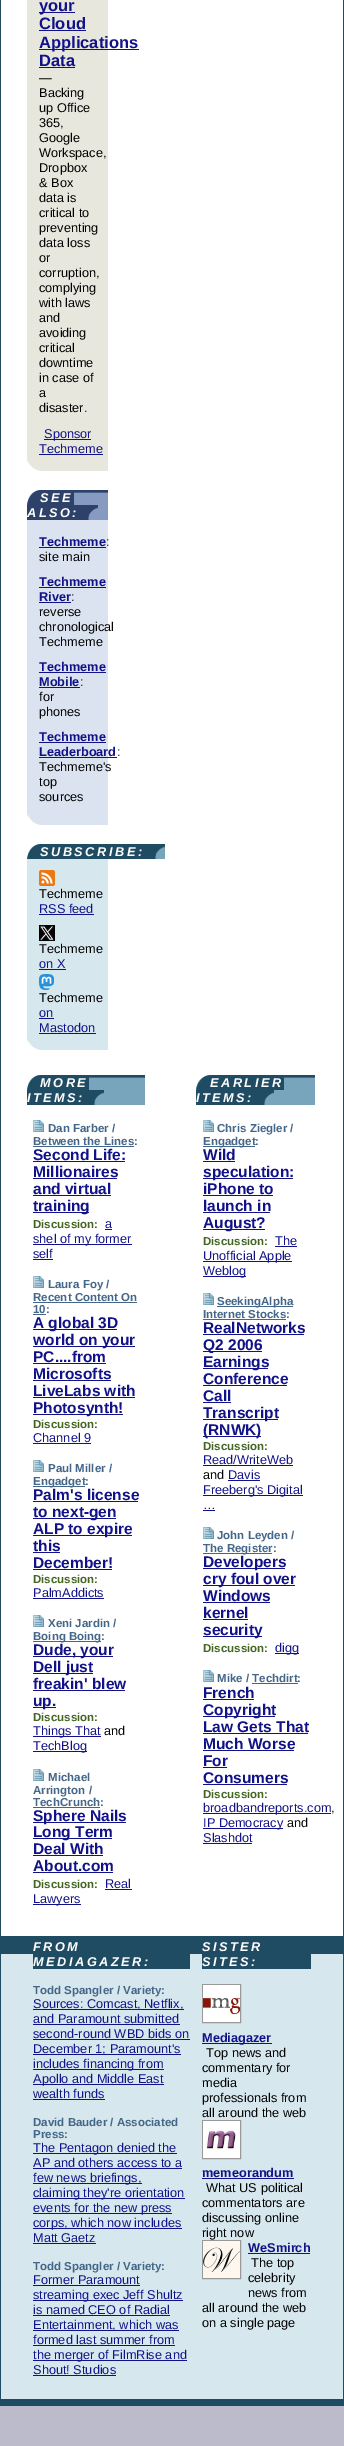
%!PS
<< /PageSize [344 2446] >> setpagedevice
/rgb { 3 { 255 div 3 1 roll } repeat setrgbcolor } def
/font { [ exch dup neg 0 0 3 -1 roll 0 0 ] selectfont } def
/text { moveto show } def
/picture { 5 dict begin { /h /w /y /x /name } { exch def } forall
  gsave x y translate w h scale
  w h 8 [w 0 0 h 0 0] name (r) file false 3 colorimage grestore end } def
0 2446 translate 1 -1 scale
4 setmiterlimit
187 187 204 rgb
0 0 344 2446 rectfill
255 255 255 rgb
1 0 342 1936 rectfill
31 76 99 rgb
343 0 1 2406 rectfill
0 2399 344 7 rectfill
0 0 1 2406 rectfill
231 231 222 rgb
27 0 81 456 rectfill
17 17 136 rgb
39 12 36 1 rectfill
39 30 47 1 rectfill
39 49 100 1 rectfill
39 67 36 1 rectfill
44 439 47 1 rectfill
39 454 64 1 rectfill
(img_01.rgb) 27 456 81 15 picture
(img_02.rgb) 74 490 34 30 picture
(img_03.rgb) 27 490 13 15 picture
(img_04.rgb) 27 490 52 30 picture
(img_05.rgb) 79 505 19 15 picture
220 227 240 rgb
27 520 81 290 rectfill
17 17 136 rgb
39 547 67 1 rectfill
39 587 67 1 rectfill
39 602 32 1 rectfill
39 672 67 1 rectfill
39 687 41 1 rectfill
39 742 67 1 rectfill
39 757 78 1 rectfill
(img_06.rgb) 27 810 81 15 picture
(img_07.rgb) 27 844 13 15 picture
31 76 99 rgb
40 844 106 15 rectfill
(img_08.rgb) 146 844 19 15 picture
215 231 238 rgb
27 859 81 176 rectfill
(img_09.rgb) 39 870 16 16 picture
17 17 136 rgb
39 914 55 1 rectfill
(img_10.rgb) 39 925 16 16 picture
39 969 27 1 rectfill
(img_11.rgb) 39 974 15 16 picture
39 1018 15 1 rectfill
39 1033 57 1 rectfill
(img_12.rgb) 27 1035 81 15 picture
(img_13.rgb) 89 1075 56 30 picture
(img_07.rgb) 27 1075 13 15 picture
(img_14.rgb) 27 1075 62 30 picture
(img_08.rgb) 85 1090 19 15 picture
(img_15.rgb) 33 1120 11 12 picture
68 102 136 rgb
33 1146 101 1 rectfill
17 17 136 rgb
33 1161 92 1 rectfill
33 1178 84 1 rectfill
33 1195 78 1 rectfill
33 1212 56 1 rectfill
105 1229 7 1 rectfill
33 1244 99 1 rectfill
33 1259 20 1 rectfill
(img_15.rgb) 33 1276 11 12 picture
68 102 136 rgb
33 1302 104 1 rectfill
33 1314 13 1 rectfill
17 17 136 rgb
33 1329 84 1 rectfill
33 1346 102 1 rectfill
33 1363 73 1 rectfill
33 1380 78 1 rectfill
33 1397 102 1 rectfill
33 1414 90 1 rectfill
33 1443 58 1 rectfill
(img_15.rgb) 33 1460 11 12 picture
68 102 136 rgb
33 1486 52 1 rectfill
17 17 136 rgb
33 1501 105 1 rectfill
33 1518 83 1 rectfill
33 1535 99 1 rectfill
33 1552 27 1 rectfill
33 1569 79 1 rectfill
33 1598 71 1 rectfill
(img_15.rgb) 33 1615 11 12 picture
68 102 136 rgb
33 1641 68 1 rectfill
17 17 136 rgb
33 1656 80 1 rectfill
33 1673 60 1 rectfill
33 1690 92 1 rectfill
33 1707 23 1 rectfill
33 1736 68 1 rectfill
33 1751 54 1 rectfill
(img_15.rgb) 33 1769 11 12 picture
68 102 136 rgb
33 1807 67 1 rectfill
17 17 136 rgb
33 1822 93 1 rectfill
33 1838 79 1 rectfill
33 1855 70 1 rectfill
33 1872 80 1 rectfill
105 1889 27 1 rectfill
33 1904 48 1 rectfill
(img_16.rgb) 274 1075 41 30 picture
(img_17.rgb) 196 1075 14 15 picture
(img_18.rgb) 196 1075 88 30 picture
(img_08.rgb) 255 1090 19 15 picture
(img_15.rgb) 203 1120 11 12 picture
68 102 136 rgb
203 1146 52 1 rectfill
17 17 136 rgb
203 1161 32 1 rectfill
203 1178 90 1 rectfill
203 1195 70 1 rectfill
203 1212 67 1 rectfill
203 1229 62 1 rectfill
275 1246 22 1 rectfill
203 1261 89 1 rectfill
203 1276 43 1 rectfill
(img_15.rgb) 203 1293 11 12 picture
68 102 136 rgb
217 1306 76 1 rectfill
203 1319 83 1 rectfill
17 17 136 rgb
203 1334 101 1 rectfill
203 1351 59 1 rectfill
203 1368 65 1 rectfill
203 1385 84 1 rectfill
203 1402 28 1 rectfill
203 1419 75 1 rectfill
203 1436 58 1 rectfill
203 1465 90 1 rectfill
228 1480 32 1 rectfill
203 1495 100 1 rectfill
203 1510 12 1 rectfill
(img_15.rgb) 203 1527 11 12 picture
68 102 136 rgb
203 1553 69 1 rectfill
17 17 136 rgb
203 1568 82 1 rectfill
203 1585 92 1 rectfill
203 1602 67 1 rectfill
203 1619 45 1 rectfill
203 1636 59 1 rectfill
275 1653 24 1 rectfill
(img_15.rgb) 203 1670 11 12 picture
68 102 136 rgb
252 1683 46 1 rectfill
17 17 136 rgb
203 1699 51 1 rectfill
203 1716 72 1 rectfill
203 1733 105 1 rectfill
203 1750 91 1 rectfill
203 1767 24 1 rectfill
203 1784 84 1 rectfill
203 1813 128 1 rectfill
203 1828 80 1 rectfill
203 1843 49 1 rectfill
215 231 238 rgb
1 1954 342 445 rectfill
31 76 99 rgb
1 1936 342 3 rectfill
1 1939 32 15 rectfill
33 1939 157 30 rectfill
17 17 136 rgb
33 2009 151 1 rectfill
33 2024 147 1 rectfill
33 2039 157 1 rectfill
33 2054 148 1 rectfill
33 2069 131 1 rectfill
33 2084 131 1 rectfill
33 2099 72 1 rectfill
33 2153 144 1 rectfill
33 2168 149 1 rectfill
33 2183 109 1 rectfill
33 2198 152 1 rectfill
33 2213 139 1 rectfill
33 2228 149 1 rectfill
33 2243 63 1 rectfill
33 2285 107 1 rectfill
33 2300 150 1 rectfill
33 2315 137 1 rectfill
33 2330 146 1 rectfill
33 2345 142 1 rectfill
33 2360 154 1 rectfill
33 2375 83 1 rectfill
31 76 99 rgb
190 1939 12 15 rectfill
202 1939 109 30 rectfill
153 153 153 rgb
202.5 1984.5 38 38 rectstroke
(img_19.rgb) 203 1985 37 37 picture
17 17 136 rgb
202 2043 70 1 rectfill
153 153 153 rgb
202.5 2120.5 38 38 rectstroke
(img_20.rgb) 203 2121 37 37 picture
17 17 136 rgb
202 2178 92 1 rectfill
153 153 153 rgb
202.5 2240.5 38 38 rectstroke
(img_21.rgb) 203 2241 37 37 picture
17 17 136 rgb
248 2253 62 1 rectfill
31 76 99 rgb
311 1939 32 15 rectfill
/LiberationSans-Bold 16.5 font
17 17 136 rgb
(your) 39 11 text
(Cloud) 39 29 text
(Applications) 39 48 text
(Data) 39 66 text
/LiberationSans-Regular 12.75 font
0 0 0 rgb
(—) 39 82 text
(Backing) 39 97 text
(up Office) 39 112 text
(365,) 39 127 text
(Google) 39 142 text
(Workspace,) 39 157 text
(Dropbox) 39 172 text
(& Box) 39 187 text
(data is) 39 202 text
(critical to) 39 217 text
(preventing) 39 232 text
(data loss) 39 247 text
(or) 39 262 text
(corruption,) 39 277 text
(complying) 39 292 text
(with laws) 39 307 text
(and) 39 322 text
(avoiding) 39 337 text
(critical) 39 352 text
(downtime) 39 367 text
(in case of) 39 382 text
(a) 39 397 text
(disaster.) 39 412 text
17 17 136 rgb
(Sponsor) 44 438 text
(Techmeme) 39 453 text
/LiberationSans-BoldItalic 12.75 font
255 255 255 rgb
40 502 moveto 2.5 0 (SEE) ashow
27 517 moveto 2.5 0 (ALSO:) ashow
/LiberationSans-Bold 12.75 font
17 17 136 rgb
(Techmeme) 39 546 text
/LiberationSans-Regular 12.75 font
0 0 0 rgb
(:) 106 546 text
(site main) 39 561 text
/LiberationSans-Bold 12.75 font
17 17 136 rgb
(Techmeme) 39 586 text
(River) 39 601 text
/LiberationSans-Regular 12.75 font
0 0 0 rgb
(:) 71 601 text
(reverse) 39 616 text
(chronological) 39 631 text
(Techmeme) 39 646 text
/LiberationSans-Bold 12.75 font
17 17 136 rgb
(Techmeme) 39 671 text
(Mobile) 39 686 text
/LiberationSans-Regular 12.75 font
0 0 0 rgb
(:) 80 686 text
(for) 39 701 text
(phones) 39 716 text
/LiberationSans-Bold 12.75 font
17 17 136 rgb
(Techmeme) 39 741 text
(Leaderboard) 39 756 text
/LiberationSans-Regular 12.75 font
0 0 0 rgb
(:) 117 756 text
(Techmeme's) 39 771 text
(top) 39 786 text
(sources) 39 801 text
/LiberationSans-BoldItalic 12.75 font
255 255 255 rgb
40 856 moveto 2.5 0 (SUBSCRIBE:) ashow
/LiberationSans-Regular 12.75 font
0 0 0 rgb
(Techmeme) 39 898 text
17 17 136 rgb
(RSS feed) 39 913 text
0 0 0 rgb
(Techmeme) 39 953 text
17 17 136 rgb
(on X) 39 968 text
0 0 0 rgb
(Techmeme) 39 1002 text
17 17 136 rgb
(on) 39 1017 text
(Mastodon) 39 1032 text
/LiberationSans-BoldItalic 12.75 font
255 255 255 rgb
40 1087 moveto 2.5 0 (MORE) ashow
27 1102 moveto 2.5 0 (ITEMS:) ashow
/LiberationSans-Bold 11.5 font
68 102 136 rgb
(Dan Farber /) 48 1132 text
(Between the Lines:) 33 1145 text
/LiberationSans-Bold 15.5 font
17 17 136 rgb
(Second Life:) 33 1160 text
(Millionaires) 33 1177 text
(and virtual) 33 1194 text
(training) 33 1211 text
/LiberationSans-Bold 11.5 font
68 102 34 rgb
(Discussion:) 33 1228 text
/LiberationSans-Regular 12.75 font
17 17 136 rgb
(a) 105 1228 text
(shel of my former) 33 1243 text
(self) 33 1258 text
/LiberationSans-Bold 11.5 font
68 102 136 rgb
(Laura Foy /) 48 1288 text
(Recent Content On) 33 1301 text
(10:) 33 1313 text
/LiberationSans-Bold 15.5 font
17 17 136 rgb
(A global 3D) 33 1328 text
(world on your) 33 1345 text
(PC....from) 33 1362 text
(Microsofts) 33 1379 text
(LiveLabs with) 33 1396 text
(Photosynth!) 33 1413 text
/LiberationSans-Bold 11.5 font
68 102 34 rgb
(Discussion:) 33 1428 text
/LiberationSans-Regular 12.75 font
17 17 136 rgb
(Channel 9) 33 1442 text
/LiberationSans-Bold 11.5 font
68 102 136 rgb
(Paul Miller /) 48 1472 text
(Engadget:) 33 1485 text
/LiberationSans-Bold 15.5 font
17 17 136 rgb
(Palm's license) 33 1500 text
(to next-gen) 33 1517 text
(ALP to expire) 33 1534 text
(this) 33 1551 text
(December!) 33 1568 text
/LiberationSans-Bold 11.5 font
68 102 34 rgb
(Discussion:) 33 1583 text
/LiberationSans-Regular 12.75 font
17 17 136 rgb
(PalmAddicts) 33 1597 text
/LiberationSans-Bold 11.5 font
68 102 136 rgb
(Xeni Jardin /) 48 1627 text
(Boing Boing:) 33 1640 text
/LiberationSans-Bold 15.5 font
17 17 136 rgb
(Dude, your) 33 1655 text
(Dell just) 33 1672 text
(freakin' blew) 33 1689 text
(up.) 33 1706 text
/LiberationSans-Bold 11.5 font
68 102 34 rgb
(Discussion:) 33 1721 text
/LiberationSans-Regular 12.75 font
17 17 136 rgb
(Things That) 33 1735 text
0 0 0 rgb
(and) 104 1735 text
17 17 136 rgb
(TechBlog) 33 1750 text
/LiberationSans-Bold 11.5 font
68 102 136 rgb
(Michael) 48 1781 text
(Arrington /) 33 1794 text
(TechCrunch:) 33 1806 text
/LiberationSans-Bold 15.5 font
17 17 136 rgb
(Sphere Nails) 33 1821 text
(Long Term) 33 1837 text
(Deal With) 33 1854 text
(About.com) 33 1871 text
/LiberationSans-Bold 11.5 font
68 102 34 rgb
(Discussion:) 33 1888 text
/LiberationSans-Regular 12.75 font
17 17 136 rgb
(Real) 105 1888 text
(Lawyers) 33 1903 text
/LiberationSans-BoldItalic 12.75 font
255 255 255 rgb
210 1087 moveto 2.5 0 (EARLIER) ashow
196 1102 moveto 2.5 0 (ITEMS:) ashow
/LiberationSans-Bold 11.5 font
68 102 136 rgb
(Chris Ziegler /) 217 1132 text
(Engadget:) 203 1145 text
/LiberationSans-Bold 15.5 font
17 17 136 rgb
(Wild) 203 1160 text
(speculation:) 203 1177 text
(iPhone to) 203 1194 text
(launch in) 203 1211 text
(August?) 203 1228 text
/LiberationSans-Bold 11.5 font
68 102 34 rgb
(Discussion:) 203 1245 text
/LiberationSans-Regular 12.75 font
17 17 136 rgb
(The) 275 1245 text
(Unofficial Apple) 203 1260 text
(Weblog) 203 1275 text
/LiberationSans-Bold 11.5 font
68 102 136 rgb
(SeekingAlpha) 217 1305 text
(Internet Stocks:) 203 1318 text
/LiberationSans-Bold 15.5 font
17 17 136 rgb
(RealNetworks) 203 1333 text
(Q2 2006) 203 1350 text
(Earnings) 203 1367 text
(Conference) 203 1384 text
(Call) 203 1401 text
(Transcript) 203 1418 text
(\(RNWK\)) 203 1435 text
/LiberationSans-Bold 11.5 font
68 102 34 rgb
(Discussion:) 203 1450 text
/LiberationSans-Regular 12.75 font
17 17 136 rgb
(Read/WriteWeb) 203 1464 text
0 0 0 rgb
(and) 203 1479 text
17 17 136 rgb
(Davis) 228 1479 text
(Freeberg's Digital) 203 1494 text
(…) 203 1509 text
/LiberationSans-Bold 11.5 font
68 102 136 rgb
(John Leyden /) 217 1539 text
(The Register:) 203 1552 text
/LiberationSans-Bold 15.5 font
17 17 136 rgb
(Developers) 203 1567 text
(cry foul over) 203 1584 text
(Windows) 203 1601 text
(kernel) 203 1618 text
(security) 203 1635 text
/LiberationSans-Bold 11.5 font
68 102 34 rgb
(Discussion:) 203 1652 text
/LiberationSans-Regular 12.75 font
17 17 136 rgb
(digg) 275 1652 text
/LiberationSans-Bold 11.5 font
68 102 136 rgb
(Mike / Techdirt:) 217 1682 text
/LiberationSans-Bold 15.5 font
17 17 136 rgb
(French) 203 1698 text
(Copyright) 203 1715 text
(Law Gets That) 203 1732 text
(Much Worse) 203 1749 text
(For) 203 1766 text
(Consumers) 203 1783 text
/LiberationSans-Bold 11.5 font
68 102 34 rgb
(Discussion:) 203 1798 text
/LiberationSans-Regular 12.75 font
17 17 136 rgb
(broadbandreports.com) 203 1812 text
0 0 0 rgb
(,) 331 1812 text
17 17 136 rgb
(IP Democracy) 203 1827 text
0 0 0 rgb
(and) 287 1827 text
17 17 136 rgb
(Slashdot) 203 1842 text
/LiberationSans-BoldItalic 12.75 font
255 255 255 rgb
33 1951 moveto 2.5 0 (FROM) ashow
33 1966 moveto 2.5 0 (MEDIAGAZER:) ashow
/LiberationSans-Bold 11.5 font
68 102 136 rgb
(Todd Spangler / Variety:) 33 1994 text
/LiberationSans-Regular 12.75 font
17 17 136 rgb
(Sources: Comcast, Netflix,) 33 2008 text
(and Paramount submitted) 33 2023 text
(second-round WBD bids on) 33 2038 text
(December 1; Paramount's) 33 2053 text
(includes financing from) 33 2068 text
(Apollo and Middle East) 33 2083 text
(wealth funds) 33 2098 text
/LiberationSans-Bold 11.5 font
68 102 136 rgb
(David Bauder / Associated) 33 2126 text
(Press:) 33 2138 text
/LiberationSans-Regular 12.75 font
17 17 136 rgb
(The Pentagon denied the) 33 2152 text
(AP and others access to a) 33 2167 text
(few news briefings,) 33 2182 text
(claiming they're orientation) 33 2197 text
(events for the new press) 33 2212 text
(corps, which now includes) 33 2227 text
(Matt Gaetz) 33 2242 text
/LiberationSans-Bold 11.5 font
68 102 136 rgb
(Todd Spangler / Variety:) 33 2270 text
/LiberationSans-Regular 12.75 font
17 17 136 rgb
(Former Paramount) 33 2284 text
(streaming exec Jeff Shultz) 33 2299 text
(is named CEO of Radial) 33 2314 text
(Entertainment, which was) 33 2329 text
(formed last summer from) 33 2344 text
(the merger of FilmRise and) 33 2359 text
(Shout! Studios) 33 2374 text
/LiberationSans-BoldItalic 12.75 font
255 255 255 rgb
202 1951 moveto 2.5 0 (SISTER) ashow
202 1966 moveto 2.5 0 (SITES:) ashow
/LiberationSans-Bold 12.75 font
17 17 136 rgb
(Mediagazer) 202 2042 text
/LiberationSans-Regular 12.75 font
0 0 0 rgb
(Top news and) 206 2057 text
(commentary for) 202 2072 text
(media) 202 2087 text
(professionals from) 202 2102 text
(all around the web) 202 2117 text
/LiberationSans-Bold 12.75 font
17 17 136 rgb
(memeorandum) 202 2177 text
/LiberationSans-Regular 12.75 font
0 0 0 rgb
(What US political) 206 2192 text
(commentators are) 202 2207 text
(discussing online) 202 2222 text
(right now) 202 2237 text
/LiberationSans-Bold 12.75 font
17 17 136 rgb
(WeSmirch) 248 2252 text
/LiberationSans-Regular 12.75 font
0 0 0 rgb
(The top) 251 2267 text
(celebrity) 248 2282 text
(news from) 248 2297 text
(all around the web) 202 2312 text
(on a single page) 202 2327 text
showpage
